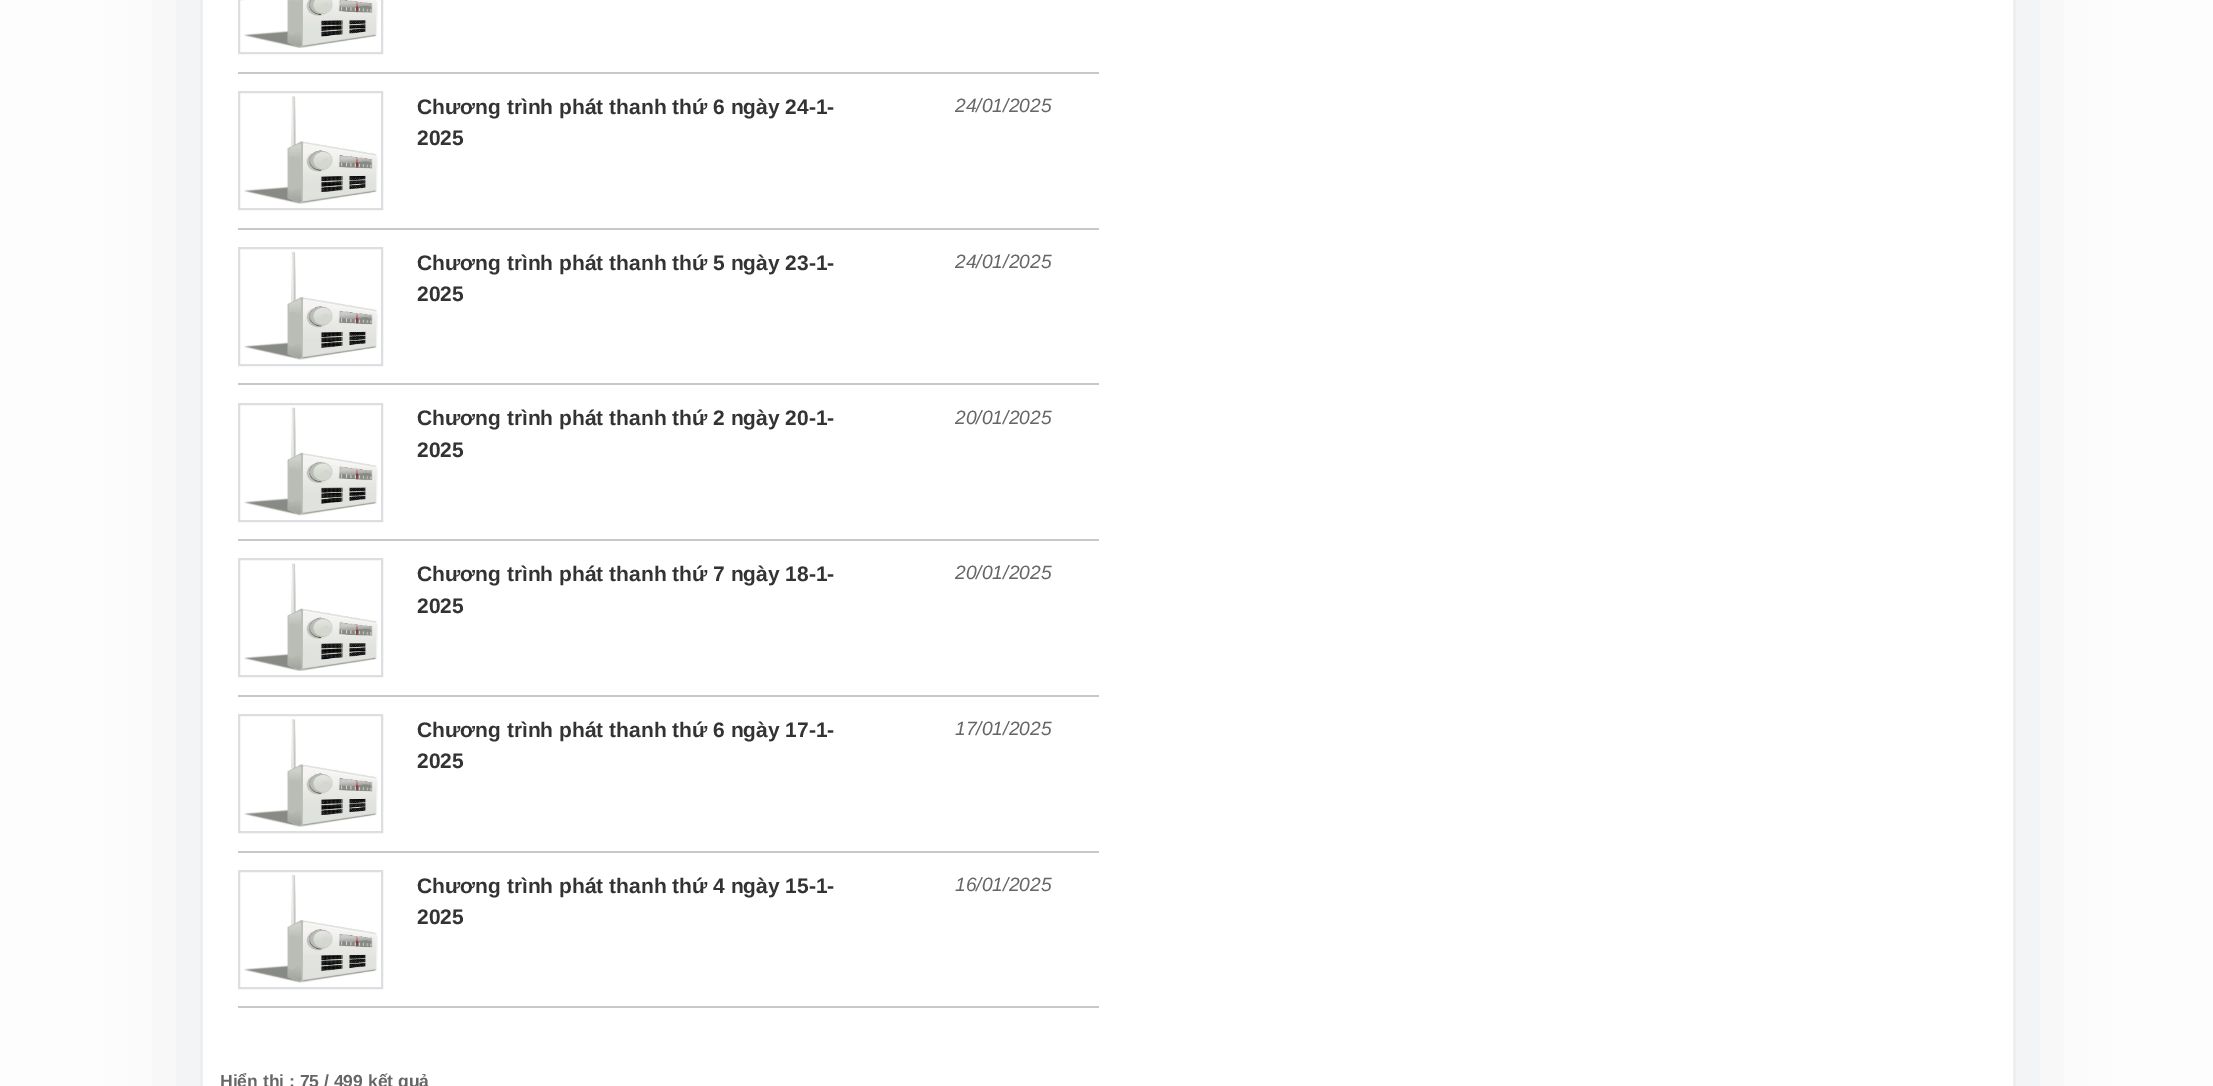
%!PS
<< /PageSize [2213 1086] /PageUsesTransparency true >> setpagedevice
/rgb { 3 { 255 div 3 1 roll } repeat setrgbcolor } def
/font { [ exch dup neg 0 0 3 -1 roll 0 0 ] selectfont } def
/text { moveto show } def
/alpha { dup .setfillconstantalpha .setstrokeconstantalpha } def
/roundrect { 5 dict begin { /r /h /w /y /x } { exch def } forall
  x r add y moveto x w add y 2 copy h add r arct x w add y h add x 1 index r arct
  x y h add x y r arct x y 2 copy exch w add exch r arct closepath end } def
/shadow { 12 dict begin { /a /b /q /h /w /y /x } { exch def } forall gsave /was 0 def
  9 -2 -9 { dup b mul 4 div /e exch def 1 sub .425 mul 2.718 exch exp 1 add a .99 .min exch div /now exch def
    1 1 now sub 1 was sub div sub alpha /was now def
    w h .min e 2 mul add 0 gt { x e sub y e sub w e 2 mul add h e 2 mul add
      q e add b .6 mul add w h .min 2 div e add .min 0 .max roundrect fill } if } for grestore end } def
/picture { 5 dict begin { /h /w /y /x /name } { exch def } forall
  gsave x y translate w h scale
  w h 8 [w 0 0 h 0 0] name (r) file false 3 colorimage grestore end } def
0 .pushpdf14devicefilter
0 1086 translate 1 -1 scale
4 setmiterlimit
253 253 253 rgb
0 0 2213 1086 rectfill
221 222 225 rgb
212 -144 1792 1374 0 48 1 shadow
255 255 255 rgb
203 0 1810 1086 rectfill
200 200 200 rgb
238 72 861 2 rectfill
221 222 225 rgb
2 setlinewidth
239 -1 143 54 rectstroke
(img_01.rgb) 244 0 134 48 picture
200 200 200 rgb
238 228 861 2 rectfill
221 222 225 rgb
239 92 143 117 rectstroke
(img_02.rgb) 244 96 134 108 picture
200 200 200 rgb
238 383 861 2 rectfill
221 222 225 rgb
239 248 143 117 rectstroke
(img_03.rgb) 244 251 134 109 picture
200 200 200 rgb
238 539 861 2 rectfill
221 222 225 rgb
239 404 143 117 rectstroke
(img_04.rgb) 244 407 134 109 picture
200 200 200 rgb
238 695 861 2 rectfill
221 222 225 rgb
239 559 143 117 rectstroke
(img_05.rgb) 244 563 134 108 picture
200 200 200 rgb
238 851 861 2 rectfill
221 222 225 rgb
239 715 143 117 rectstroke
(img_02.rgb) 244 719 134 108 picture
200 200 200 rgb
238 1006 861 2 rectfill
221 222 225 rgb
239 871 143 117 rectstroke
(img_03.rgb) 244 874 134 109 picture
/LiberationSans-Bold 21 font
51 51 51 rgb
(Chương trình phát thanh thứ 6 ngày 24-1-) 417 114 text
(2025) 417 145 text
/LiberationSans-Italic 19.25 font
102 102 102 rgb
(24/01/2025) 955 112 text
/LiberationSans-Bold 21 font
51 51 51 rgb
(Chương trình phát thanh thứ 5 ngày 23-1-) 417 270 text
(2025) 417 301 text
/LiberationSans-Italic 19.25 font
102 102 102 rgb
(24/01/2025) 955 268 text
/LiberationSans-Bold 21 font
51 51 51 rgb
(Chương trình phát thanh thứ 2 ngày 20-1-) 417 425 text
(2025) 417 457 text
/LiberationSans-Italic 19.25 font
102 102 102 rgb
(20/01/2025) 955 424 text
/LiberationSans-Bold 21 font
51 51 51 rgb
(Chương trình phát thanh thứ 7 ngày 18-1-) 417 581 text
(2025) 417 613 text
/LiberationSans-Italic 19.25 font
102 102 102 rgb
(20/01/2025) 955 579 text
/LiberationSans-Bold 21 font
51 51 51 rgb
(Chương trình phát thanh thứ 6 ngày 17-1-) 417 737 text
(2025) 417 768 text
/LiberationSans-Italic 19.25 font
102 102 102 rgb
(17/01/2025) 955 735 text
/LiberationSans-Bold 21 font
51 51 51 rgb
(Chương trình phát thanh thứ 4 ngày 15-1-) 417 893 text
(2025) 417 924 text
/LiberationSans-Italic 19.25 font
102 102 102 rgb
(16/01/2025) 955 891 text
/LiberationSans-Bold 17.5 font
(Hiển thị : 75 / 499 kết quả) 220 1087 text
.poppdf14devicefilter showpage
